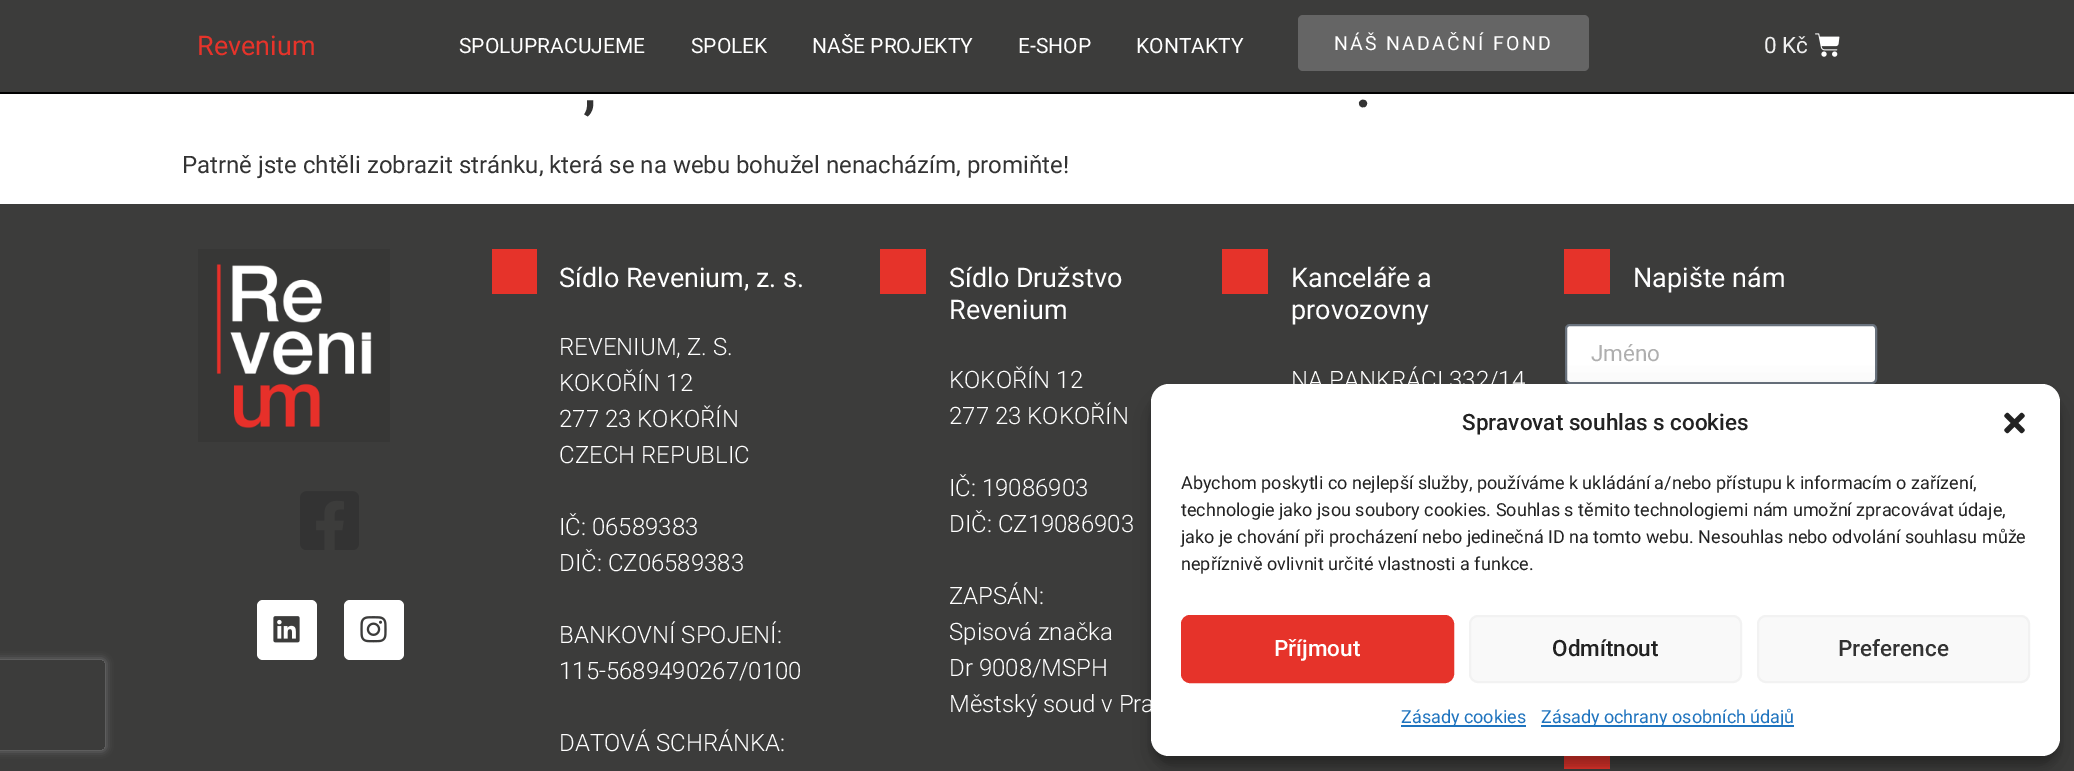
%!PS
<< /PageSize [2074 771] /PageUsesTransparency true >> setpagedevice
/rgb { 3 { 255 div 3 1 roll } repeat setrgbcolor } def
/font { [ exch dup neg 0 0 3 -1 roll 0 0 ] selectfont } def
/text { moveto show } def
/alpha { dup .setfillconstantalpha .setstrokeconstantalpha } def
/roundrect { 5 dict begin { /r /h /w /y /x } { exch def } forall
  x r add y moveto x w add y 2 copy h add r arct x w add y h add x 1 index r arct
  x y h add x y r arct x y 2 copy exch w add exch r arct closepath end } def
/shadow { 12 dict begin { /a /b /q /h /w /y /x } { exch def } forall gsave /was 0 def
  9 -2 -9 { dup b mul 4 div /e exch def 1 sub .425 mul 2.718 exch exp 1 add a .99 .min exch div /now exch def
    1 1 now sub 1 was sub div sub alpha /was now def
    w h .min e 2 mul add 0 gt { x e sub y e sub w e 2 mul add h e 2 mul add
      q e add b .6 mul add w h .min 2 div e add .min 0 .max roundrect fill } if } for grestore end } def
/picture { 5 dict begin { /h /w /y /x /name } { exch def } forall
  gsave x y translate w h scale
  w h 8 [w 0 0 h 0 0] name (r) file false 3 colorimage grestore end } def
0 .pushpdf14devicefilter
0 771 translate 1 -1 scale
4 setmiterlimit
255 255 255 rgb
0 0 2074 771 rectfill
60 60 59 rgb
0 0 2074 92 rectfill
0 0 0 rgb
0 92 2074 2 rectfill
101 101 101 rgb
1298 15 291 56 5 roundrect fill
(img_01.rgb) 1815 33 25 24 picture
60 60 59 rgb
0 204 2074 567 rectfill
(img_02.rgb) 198 249 192 193 picture
(img_03.rgb) 300 491 59 59 picture
255 255 255 rgb
257 600 60 60 6 roundrect fill
(img_04.rgb) 273 616 27 27 picture
344 600 60 60 6 roundrect fill
(img_05.rgb) 360 616 27 27 picture
230 51 42 rgb
492 249 45 45 rectfill
880 249 46 45 rectfill
1222 249 46 45 rectfill
1564 249 46 45 rectfill
255 255 255 rgb
1566 325 310 58 4 roundrect gsave fill grestore
105 114 125 rgb
2 setlinewidth
stroke
gsave
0 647 moveto 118 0 rlineto 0 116 rlineto -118 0 rlineto closepath -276 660 moveto 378 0 rlineto 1.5 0 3 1.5 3 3 rcurveto 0 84 rlineto 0 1.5 -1.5 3 -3 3 rcurveto -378 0 rlineto -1.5 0 -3 -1.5 -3 -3 rcurveto 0 -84 rlineto 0 -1.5 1.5 -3 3 -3 rcurveto closepath eoclip newpath
128 128 128 rgb
-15 660 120 90 3 4 1 shadow
grestore
230 51 42 rgb
1564 756 46 13 rectfill
0 0 0 rgb
1151 393 909 372 18 4.5 0.23 shadow
1151 399 909 372 18 15 0.19 shadow
255 255 255 rgb
1151 384 909 372 18 roundrect fill
(img_06.rgb) 2004 412 21 22 picture
230 51 42 rgb
1182 616 271 66 8 roundrect gsave fill grestore
stroke
249 249 249 rgb
1470 616 271 66 8 roundrect gsave fill grestore
242 242 242 rgb
stroke
249 249 249 rgb
1758 616 271 66 8 roundrect gsave fill grestore
242 242 242 rgb
stroke
30 115 190 rgb
1401 725 125 2 rectfill
1541 725 253 2 rectfill
/Roboto-Regular 27 font
230 51 42 rgb
(Revenium) 197 55 text
/Roboto-Regular 21 font
255 255 255 rgb
(SPOLUPRACUJEME) 459 53 text
(SPOLEK) 691 53 text
(NAŠE PROJEKTY) 812 53 text
(E-SHOP) 1018 53 text
(KONTAKTY) 1136 53 text
/Roboto-Regular 19.5 font
1334 50 moveto 2.25 0 (NÁŠ NADAČNÍ FOND) ashow
/Roboto-Regular 22.5 font
240 240 240 rgb
(0 Kč) 1764 53 text
/Roboto-Medium 60 font
51 51 51 rgb
(,) 583 107 text
(.) 1355 107 text
/Roboto-Regular 24 font
(Patrně jste chtěli zobrazit stránku, která se na webu bohužel nenacházím, promiňte!) 182 173 text
/Roboto-Regular 27 font
255 255 255 rgb
(Sídlo Revenium, z. s.) 559 287 text
/Roboto-Light 24 font
(REVENIUM, Z. S.) 559 355 text
(KOKOŘÍN 12) 559 391 text
(277 23 KOKOŘÍN) 559 427 text
(CZECH REPUBLIC) 559 463 text
(IČ: 06589383) 559 535 text
(DIČ: CZ06589383) 559 571 text
(BANKOVNÍ SPOJENÍ:) 559 643 text
(115-5689490267/0100) 559 679 text
(DATOVÁ SCHRÁNKA:) 559 751 text
/Roboto-Regular 27 font
(Sídlo Družstvo) 949 287 text
(Revenium) 949 319 text
/Roboto-Light 24 font
(KOKOŘÍN 12) 949 388 text
(277 23 KOKOŘÍN) 949 424 text
(IČ: 19086903) 949 496 text
(DIČ: CZ19086903) 949 532 text
(ZAPSÁN:) 949 604 text
(Spisová značka) 949 640 text
(Dr 9008/MSPH) 949 676 text
(Městský soud v Pra) 949 712 text
/Roboto-Regular 27 font
(Kanceláře a) 1291 287 text
(provozovny) 1291 319 text
/Roboto-Light 24 font
(NA PANKRÁCI 332/14) 1291 388 text
/Roboto-Regular 27 font
(Napište nám) 1633 287 text
/Roboto-Regular 22.5 font
175 175 175 rgb
(Jméno) 1591 361 text
/Roboto-Medium 22.5 font
34 34 34 rgb
(Spravovat souhlas s cookies) 1462 430 text
/Roboto-Regular 18 font
(Abychom poskytli co nejlepší služby, používáme k ukládání a/nebo přístupu k informacím o zařízení,) 1181 489 text
(technologie jako jsou soubory cookies. Souhlas s těmito technologiemi nám umožní zpracovávat údaje,) 1181 516 text
(jako je chování při procházení nebo jedinečná ID na tomto webu. Nesouhlas nebo odvolání souhlasu může) 1181 543 text
(nepříznivě ovlivnit určité vlastnosti a funkce.) 1181 570 text
/Roboto-Medium 22.5 font
255 255 255 rgb
(Příjmout) 1274 656 text
34 34 34 rgb
(Odmítnout) 1552 656 text
51 51 51 rgb
(Preference) 1838 656 text
/Roboto-Regular 18 font
30 115 190 rgb
(Zásady cookies) 1401 723 text
(Zásady ochrany osobních údajů) 1541 723 text
.poppdf14devicefilter showpage
